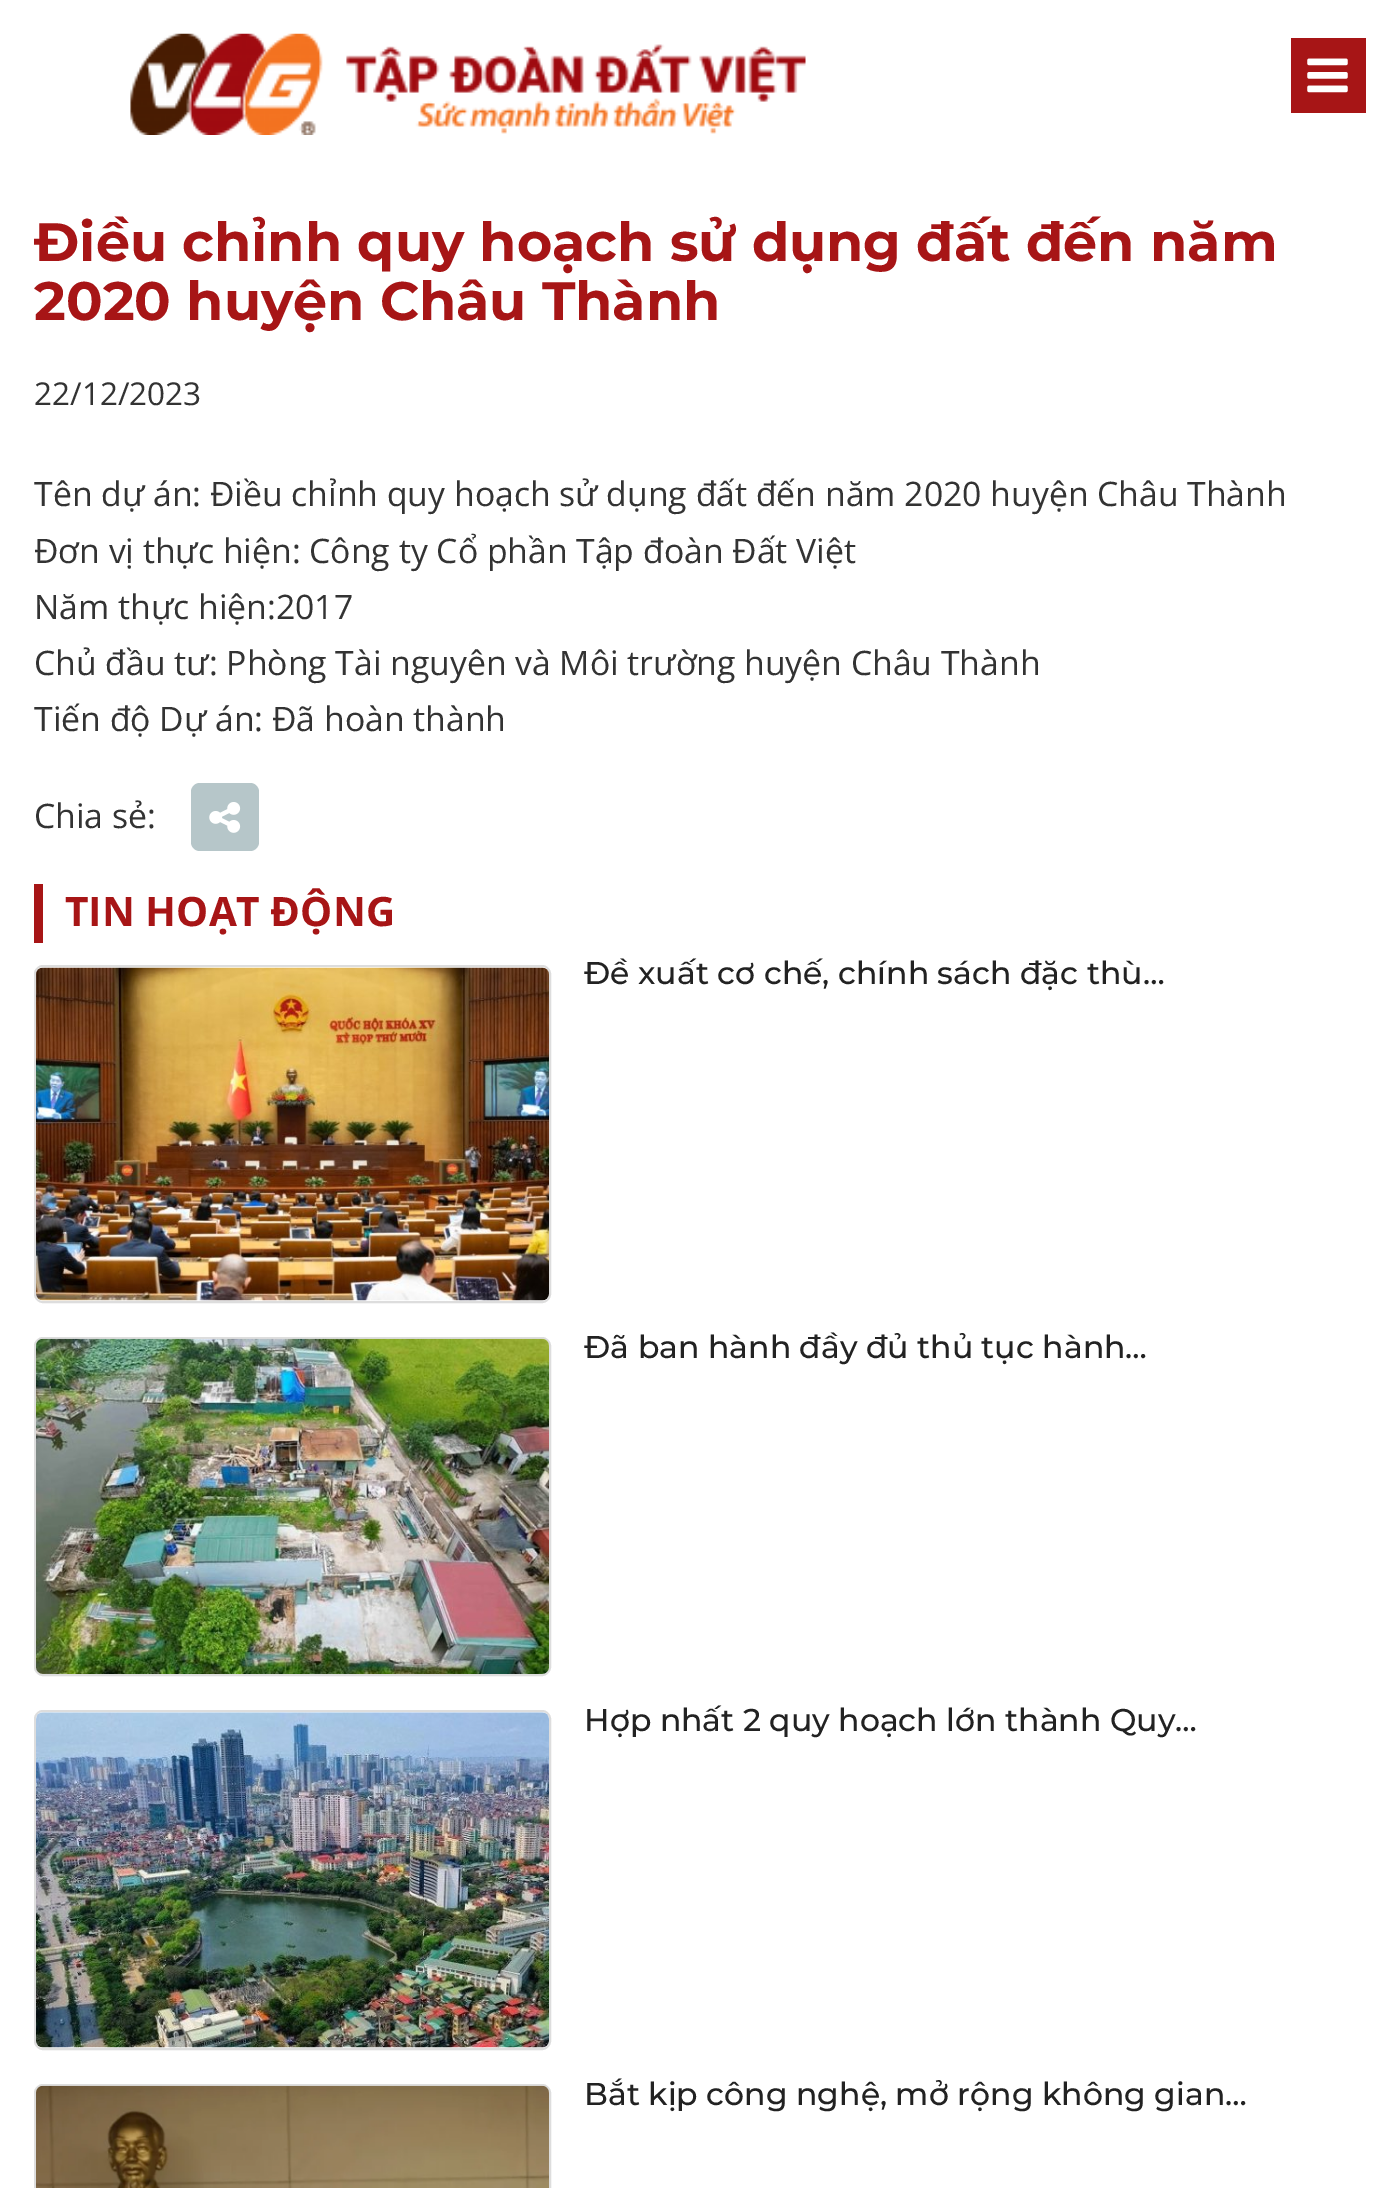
%!PS
<< /PageSize [1400 2188] >> setpagedevice
/rgb { 3 { 255 div 3 1 roll } repeat setrgbcolor } def
/font { [ exch dup neg 0 0 3 -1 roll 0 0 ] selectfont } def
/text { moveto show } def
/roundrect { 5 dict begin { /r /h /w /y /x } { exch def } forall
  x r add y moveto x w add y 2 copy h add r arct x w add y h add x 1 index r arct
  x y h add x y r arct x y 2 copy exch w add exch r arct closepath end } def
/picture { 5 dict begin { /h /w /y /x /name } { exch def } forall
  gsave x y translate w h scale
  w h 8 [w 0 0 h 0 0] name (r) file false 3 colorimage grestore end } def
0 2188 translate 1 -1 scale
4 setmiterlimit
255 255 255 rgb
0 0 1400 2188 rectfill
(img_01.rgb) 130 33 676 102 picture
167 21 22 rgb
1291 38 75 75 rectfill
(img_02.rgb) 1307 58 41 35 picture
182 198 201 rgb
191 783 68 68 9 roundrect fill
(img_03.rgb) 209 802 32 31 picture
167 21 22 rgb
34 884 9 59 rectfill
221 221 221 rgb
2 setlinewidth
35 966 515 336 8 roundrect stroke
(img_04.rgb) 36 967 513 334 picture
35 1338 515 337 8 roundrect stroke
(img_05.rgb) 36 1338 513 336 picture
35 1711 515 338 8 roundrect stroke
(img_06.rgb) 36 1712 513 336 picture
35 2085 515 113 8 roundrect stroke
(img_07.rgb) 36 2085 513 103 picture
/Montserrat-Bold 54 font
167 21 22 rgb
(Điều chỉnh quy hoạch sử dụng đất đến năm) 34 261 text
(2020 huyện Châu Thành) 34 320 text
/OpenSans-Regular 31.5 font
51 51 51 rgb
(22/12/2023) 34 405 text
/OpenSans-Regular 33.75 font
(Tên dự án: Điều chỉnh quy hoạch sử dụng đất đến năm 2020 huyện Châu Thành) 34 506 text
(Đơn vị thực hiện: Công ty Cổ phần Tập đoàn Đất Việt) 34 563 text
(Năm thực hiện:2017) 34 619 text
(Chủ đầu tư: Phòng Tài nguyên và Môi trường huyện Châu Thành) 34 675 text
(Tiến độ Dự án: Đã hoàn thành) 34 731 text
(Chia sẻ:) 34 828 text
/OpenSans-Bold 40.5 font
167 21 22 rgb
(TIN HOẠT ĐỘNG) 65 926 text
/Montserrat-Medium 31.5 font
34 34 34 rgb
(Đề xuất cơ chế, chính sách đặc thù…) 584 984 text
(Đã ban hành đầy đủ thủ tục hành…) 584 1358 text
(Hợp nhất 2 quy hoạch lớn thành Quy…) 584 1731 text
(Bắt kịp công nghệ, mở rộng không gian…) 584 2105 text
showpage
